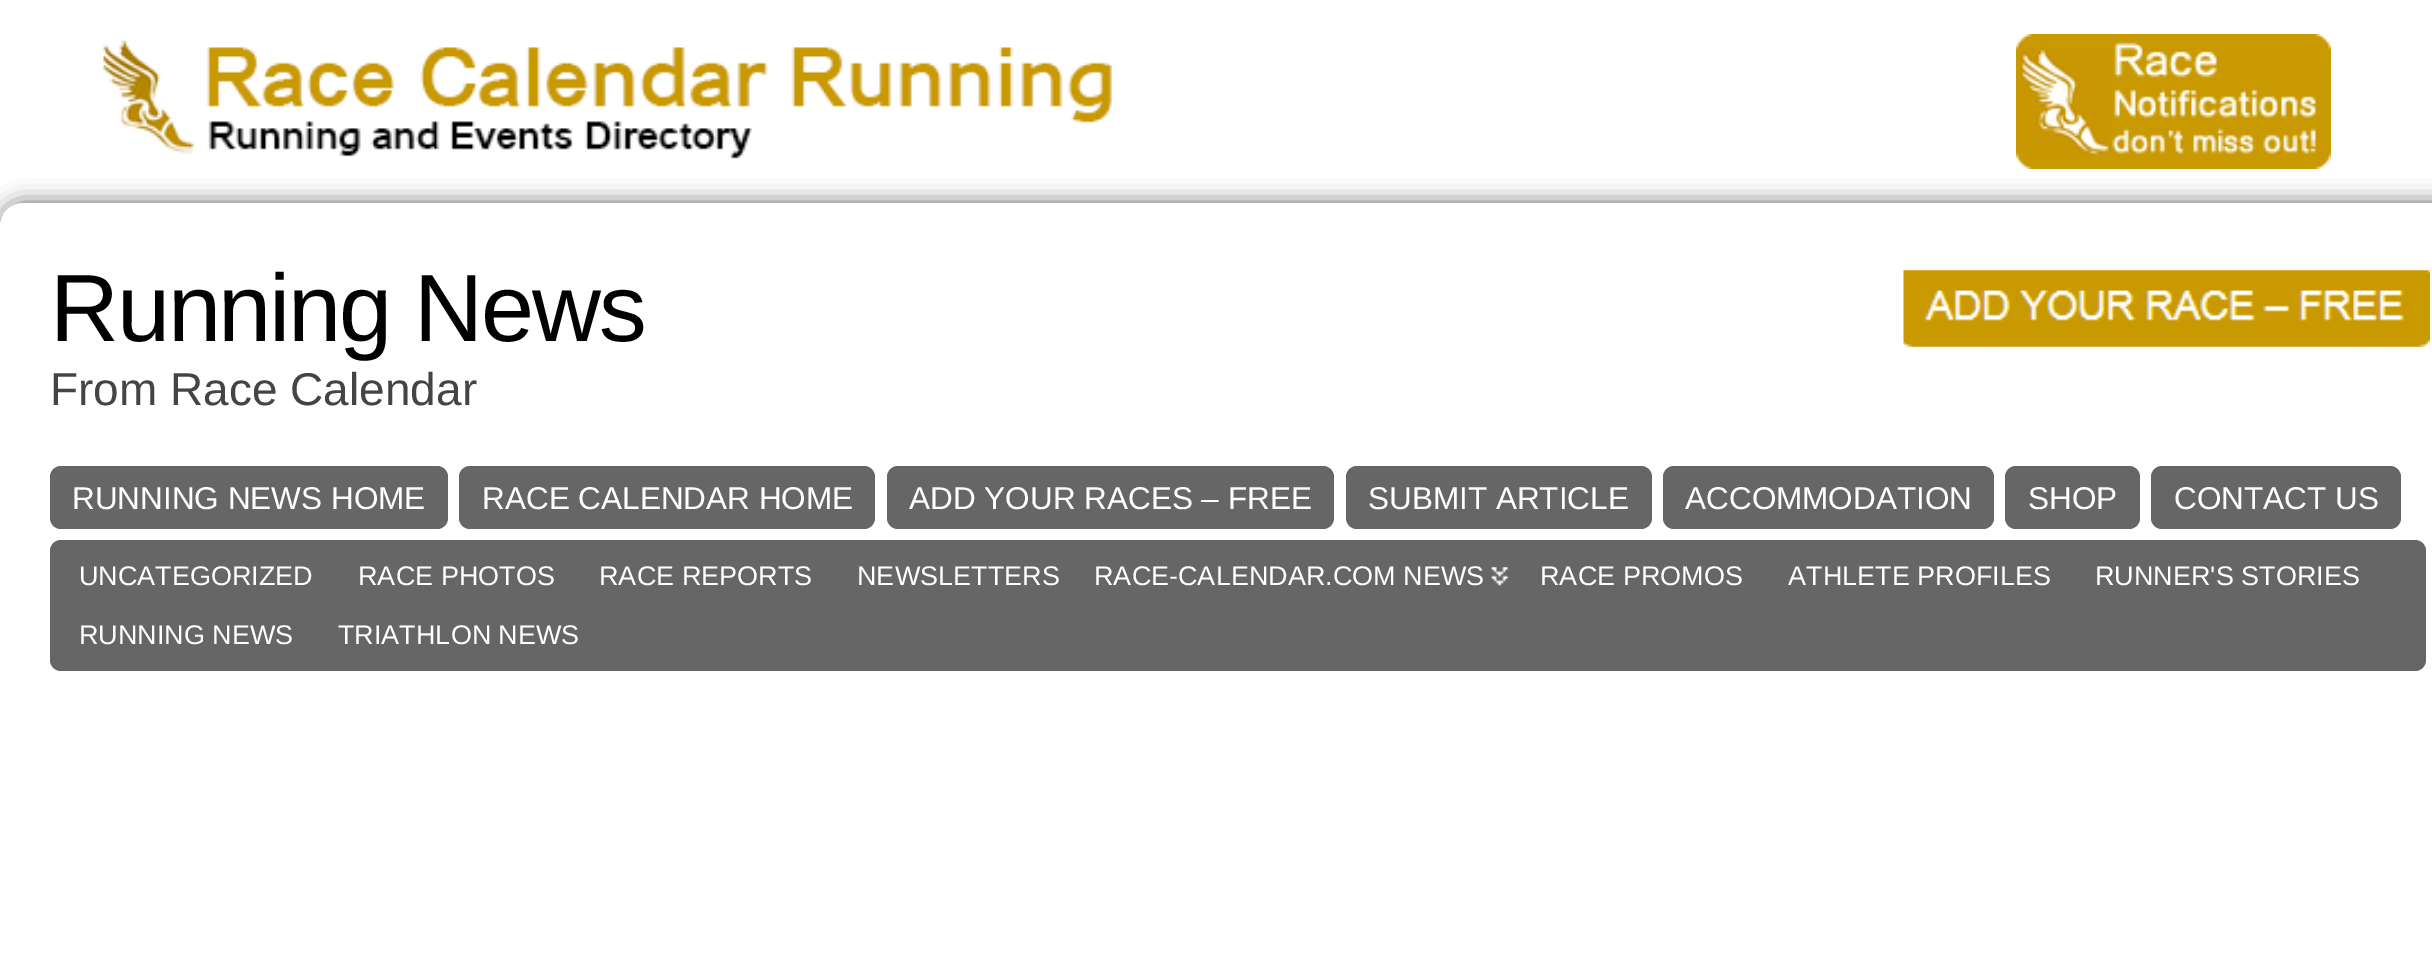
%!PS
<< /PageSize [2432 960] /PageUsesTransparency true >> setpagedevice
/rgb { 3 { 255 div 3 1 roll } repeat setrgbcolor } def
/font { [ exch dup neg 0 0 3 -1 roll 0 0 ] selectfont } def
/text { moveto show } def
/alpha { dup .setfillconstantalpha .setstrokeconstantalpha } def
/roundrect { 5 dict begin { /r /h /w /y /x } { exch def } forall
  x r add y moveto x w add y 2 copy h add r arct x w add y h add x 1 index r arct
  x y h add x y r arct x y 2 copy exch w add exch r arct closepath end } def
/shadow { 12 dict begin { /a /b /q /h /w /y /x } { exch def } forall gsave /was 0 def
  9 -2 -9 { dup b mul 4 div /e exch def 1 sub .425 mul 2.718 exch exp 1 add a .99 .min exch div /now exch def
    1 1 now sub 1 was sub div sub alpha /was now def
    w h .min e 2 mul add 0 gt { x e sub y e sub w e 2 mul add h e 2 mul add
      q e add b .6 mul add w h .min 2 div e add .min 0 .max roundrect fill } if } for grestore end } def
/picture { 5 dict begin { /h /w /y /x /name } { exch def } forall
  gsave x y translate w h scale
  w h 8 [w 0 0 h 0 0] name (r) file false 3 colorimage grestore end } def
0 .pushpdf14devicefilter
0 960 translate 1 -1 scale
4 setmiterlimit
255 255 255 rgb
0 0 2432 960 rectfill
(img_01.rgb) 0 0 2432 226 picture
(img_02.rgb) 103 40 1010 119 picture
(img_03.rgb) 2016 34 315 135 picture
102 102 102 rgb
0 203 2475 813 23 11 1 shadow
255 255 255 rgb
0 203 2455 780 23 roundrect fill
(img_04.rgb) 1903 270 527 77 picture
102 102 102 rgb
50 466 398 63 11 roundrect fill
459 466 416 63 11 roundrect fill
887 466 447 63 11 roundrect fill
1346 466 306 63 11 roundrect fill
1663 466 331 63 11 roundrect fill
2005 466 135 63 11 roundrect fill
2151 466 250 63 11 roundrect fill
50 540 2376 131 11 roundrect fill
(img_05.rgb) 1491 567 18 19 picture
/LiberationSans-Regular 95.5 font
0 0 0 rgb
50 341 moveto -2.25 0 (Running News) ashow
/LiberationSans-Regular 46 font
68 68 68 rgb
(From Race Calendar) 50 405 text
/LiberationSans-Regular 31.5 font
255 255 255 rgb
(RUNNING NEWS HOME) 72 509 text
(RACE CALENDAR HOME) 482 509 text
(ADD YOUR RACES – FREE) 909 509 text
(SUBMIT ARTICLE) 1368 509 text
(ACCOMMODATION) 1685 509 text
(SHOP) 2028 509 text
(CONTACT US) 2174 509 text
/LiberationSans-Regular 27 font
(UNCATEGORIZED) 79 585 text
(RACE PHOTOS) 358 585 text
(RACE REPORTS) 599 585 text
(NEWSLETTERS) 857 585 text
(RACE-CALENDAR.COM NEWS) 1094 585 text
(RACE PROMOS) 1540 585 text
(ATHLETE PROFILES) 1788 585 text
(RUNNER'S STORIES) 2095 585 text
(RUNNING NEWS) 79 644 text
(TRIATHLON NEWS) 338 644 text
.poppdf14devicefilter showpage
